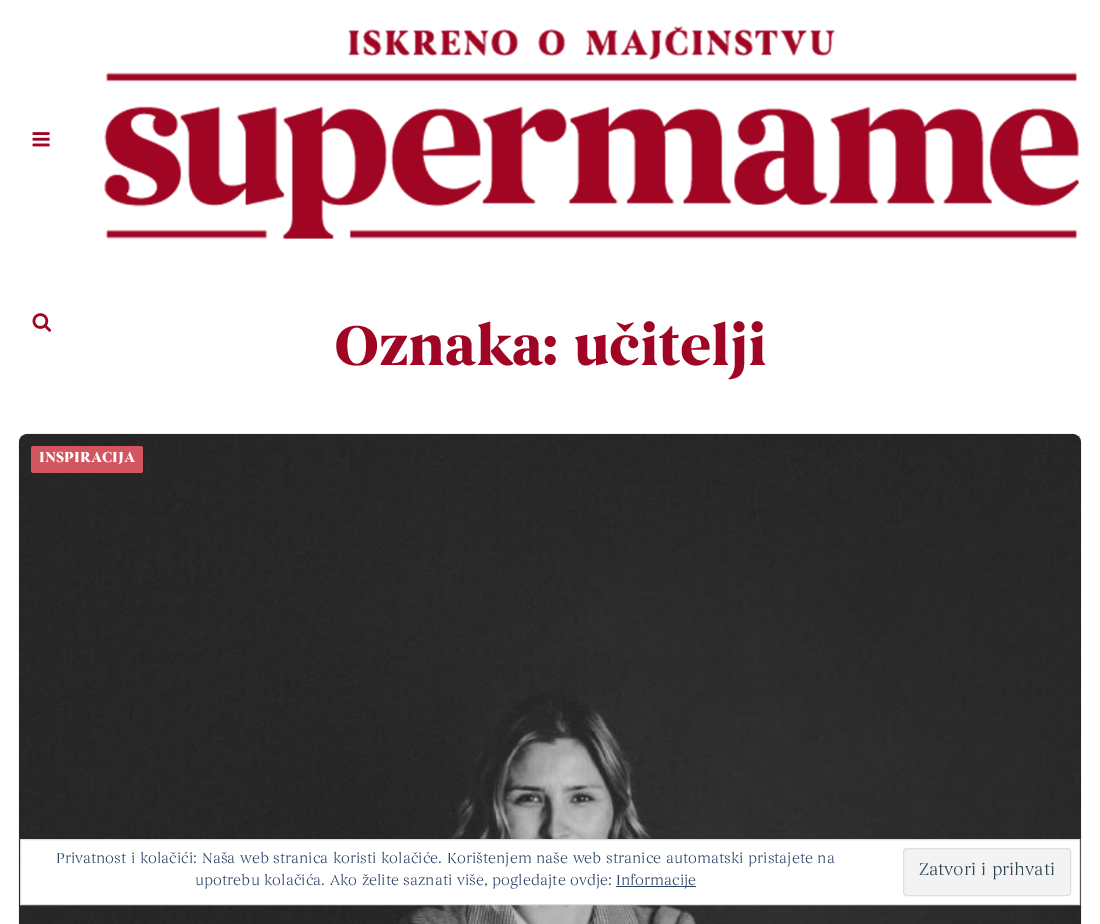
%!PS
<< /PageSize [1100 924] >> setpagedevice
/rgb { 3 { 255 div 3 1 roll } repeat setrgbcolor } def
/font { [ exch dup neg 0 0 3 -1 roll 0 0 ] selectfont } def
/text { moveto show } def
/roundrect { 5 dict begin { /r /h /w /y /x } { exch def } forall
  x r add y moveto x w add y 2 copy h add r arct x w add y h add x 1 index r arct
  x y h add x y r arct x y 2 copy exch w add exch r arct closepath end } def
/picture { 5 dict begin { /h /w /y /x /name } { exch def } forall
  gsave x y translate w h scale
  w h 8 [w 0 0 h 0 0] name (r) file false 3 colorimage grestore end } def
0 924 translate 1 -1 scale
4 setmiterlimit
255 255 255 rgb
0 0 1100 924 rectfill
(img_01.rgb) 32 132 18 15 picture
(img_02.rgb) 104 26 975 213 picture
(img_03.rgb) 32 313 20 19 picture
(img_04.rgb) 18 433 1064 491 picture
210 85 95 rgb
31 446 112 27 2.5 roundrect fill
255 255 255 rgb
20.5 839.5 moveto 1059 0 rlineto 0 65 rlineto -1059 0 rlineto closepath gsave fill grestore
222 222 222 rgb
stroke
46 68 103 rgb
616 886 80 1 rectfill
243 243 243 rgb
903.5 848.5 167 47 3.5 roundrect gsave fill grestore
222 222 222 rgb
stroke
/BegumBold-Bold 57.5 font
160 5 35 rgb
334 365 moveto -0.6 0 (Oznaka: učitelji) ashow
/BegumBold-Bold 15 font
255 255 255 rgb
(INSPIRACIJA) 39 462 text
/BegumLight-Light 15 font
46 68 103 rgb
(Privatnost i kolačići: Naša web stranica koristi kolačiće. Korištenjem naše web stranice automatski pristajete na) 56 863 text
(upotrebu kolačića. Ako želite saznati više, pogledajte ovdje:) 195 885 text
(Informacije) 616 885 text
/BegumLight-Light 17.5 font
46 68 83 rgb
(Zatvori i prihvati) 919 875 text
showpage
